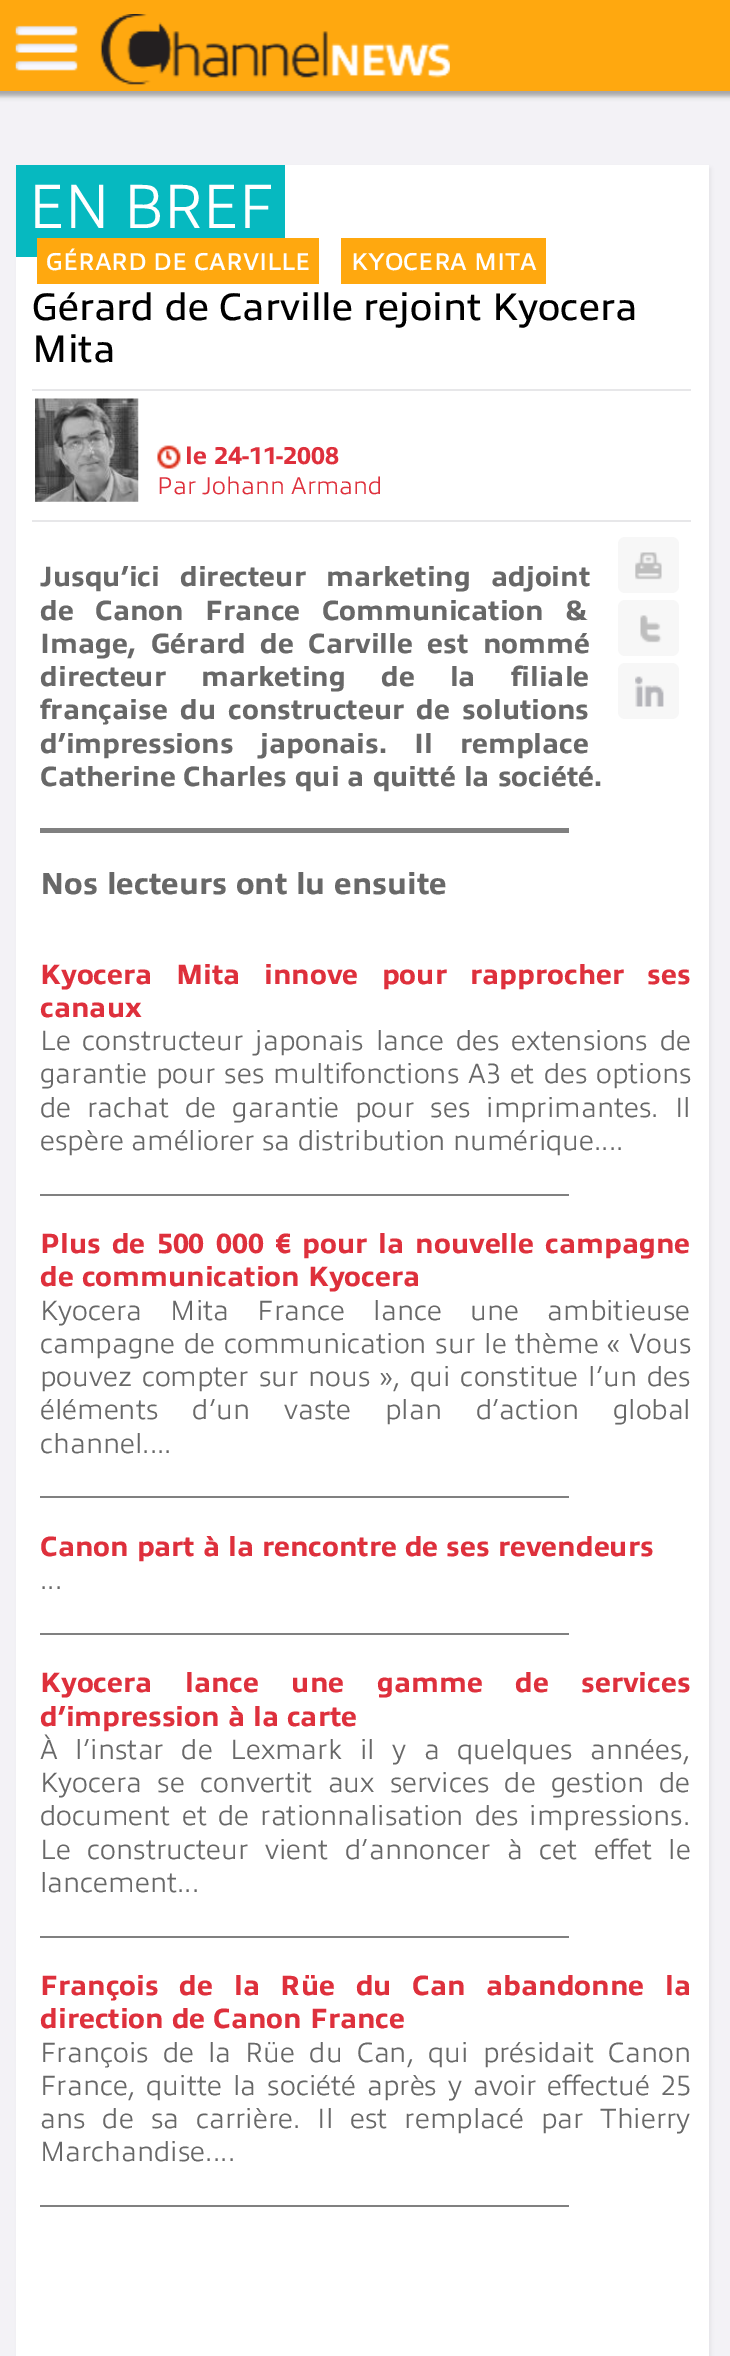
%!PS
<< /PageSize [730 2356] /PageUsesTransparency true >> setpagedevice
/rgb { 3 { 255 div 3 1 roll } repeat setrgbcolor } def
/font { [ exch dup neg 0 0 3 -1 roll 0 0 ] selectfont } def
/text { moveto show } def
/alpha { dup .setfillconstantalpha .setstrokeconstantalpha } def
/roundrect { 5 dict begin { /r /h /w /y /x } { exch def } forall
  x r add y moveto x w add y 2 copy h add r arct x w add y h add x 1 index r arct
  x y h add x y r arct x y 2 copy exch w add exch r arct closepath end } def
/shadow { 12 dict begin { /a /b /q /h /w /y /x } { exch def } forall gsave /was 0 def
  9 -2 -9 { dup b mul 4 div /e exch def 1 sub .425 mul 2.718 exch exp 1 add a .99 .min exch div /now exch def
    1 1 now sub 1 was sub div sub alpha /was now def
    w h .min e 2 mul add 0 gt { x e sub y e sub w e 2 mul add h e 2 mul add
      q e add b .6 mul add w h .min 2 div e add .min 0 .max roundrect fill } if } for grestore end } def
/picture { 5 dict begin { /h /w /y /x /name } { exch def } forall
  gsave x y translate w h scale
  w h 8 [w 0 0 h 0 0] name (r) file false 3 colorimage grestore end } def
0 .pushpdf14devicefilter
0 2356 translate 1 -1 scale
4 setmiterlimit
243 242 246 rgb
0 0 730 2356 rectfill
163 163 164 rgb
-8 -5 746 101 0 2.5 1 shadow
255 168 15 rgb
0 0 730 91 rectfill
(img_01.rgb) 15 25 63 46 picture
(img_02.rgb) 100 14 350 71 picture
0 0 0 rgb
18 168 693 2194 0 2 0.06 shadow
255 255 255 rgb
16 165 693 2191 rectfill
6 185 192 rgb
16 165 269 92 rectfill
255 168 15 rgb
37 238 282 46 rectfill
341 238 205 46 rectfill
231 231 233 rgb
32 389 659 2 rectfill
32 520 659 2 rectfill
(img_03.rgb) 35 398 104 104 picture
(img_04.rgb) 157 445 24 24 picture
247 247 247 rgb
618 537 61 56 7 roundrect fill
(img_05.rgb) 635 552 27 28 picture
618 600 61 56 7 roundrect fill
(img_06.rgb) 640 615 22 28 picture
618 663 61 56 7 roundrect fill
(img_07.rgb) 635 676 29 31 picture
128 128 128 rgb
40 828 529 5 rectfill
40 1194 529 2 rectfill
40 1496 529 2 rectfill
40 1633 529 2 rectfill
40 1936 529 2 rectfill
40 2205 529 2 rectfill
/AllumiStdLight-Light 63 font
255 255 255 rgb
28 228 moveto -1.75 0 (EN BREF) ashow
/AllumiStdLight-Bold 24.5 font
(GÉRARD DE CARVILLE) 46 270 text
(KYOCERA MITA) 351 270 text
/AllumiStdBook-Regular 38.5 font
0 0 0 rgb
(Gérard de Carville rejoint Kyocera) 32 320 text
(Mita) 32 362 text
/AllumiStdBook-ExtraBold 24.5 font
222 48 60 rgb
(le 24-11-2008) 185 464 text
/AllumiStdLight-Light 24.5 font
(Par Johann Armand) 157 494 text
/AllumiStdBook-ExtraBold 28 font
104 104 104 rgb
40 586 moveto 12 0 32 (Jusqu’ici directeur marketing adjoint) widthshow
40 620 moveto 13.5 0 32 (de Canon France Communication &) widthshow
40 653 moveto 6.5 0 32 (Image, Gérard de Carville est nommé) widthshow
40 686 moveto 27 0 32 (directeur marketing de la filiale) widthshow
40 719 moveto 4.5 0 32 (française du constructeur de solutions) widthshow
40 753 moveto 19 0 32 (d’impressions japonais. Il remplace) widthshow
(Catherine Charles qui a quitté la société.) 40 786 text
/AllumiStdBook-ExtraBold 30.75 font
(Nos lecteurs ont lu ensuite) 40 894 text
/AllumiStdBook-ExtraBold 28 font
222 48 60 rgb
40 984 moveto 15.5 0 32 (Kyocera Mita innove pour rapprocher ses) widthshow
(canaux) 40 1017 text
/AllumiStdLight-Light 28 font
104 104 104 rgb
40 1050 moveto 4.5 0 32 (Le constructeur japonais lance des extensions de) widthshow
40 1083 moveto 1.5 0 32 (garantie pour ses multifonctions A3 et des options) widthshow
40 1117 moveto 8.5 0 32 (de rachat de garantie pour ses imprimantes. Il) widthshow
(espère améliorer sa distribution numérique....) 40 1150 text
/AllumiStdBook-ExtraBold 28 font
222 48 60 rgb
40 1253 moveto 3.25 0 32 (Plus de 500 000 € pour la nouvelle campagne) widthshow
(de communication Kyocera) 40 1286 text
/AllumiStdLight-Light 28 font
104 104 104 rgb
40 1320 moveto 21 0 32 (Kyocera Mita France lance une ambitieuse) widthshow
40 1353 moveto 1.5 0 32 (campagne de communication sur le thème « Vous) widthshow
40 1386 moveto 2.5 0 32 (pouvez compter sur nous », qui constitue l’un des) widthshow
40 1419 moveto 26.5 0 32 (éléments d’un vaste plan d’action global) widthshow
(channel....) 40 1453 text
/AllumiStdBook-ExtraBold 28 font
222 48 60 rgb
(Canon part à la rencontre de ses revendeurs) 40 1556 text
/AllumiStdLight-Light 28 font
104 104 104 rgb
(...) 40 1589 text
/AllumiStdBook-ExtraBold 28 font
222 48 60 rgb
40 1692 moveto 24.5 0 32 (Kyocera lance une gamme de services) widthshow
(d’impression à la carte) 40 1726 text
/AllumiStdLight-Light 28 font
104 104 104 rgb
40 1759 moveto 10.25 0 32 (À l’instar de Lexmark il y a quelques années,) widthshow
40 1792 moveto 7.75 0 32 (Kyocera se convertit aux services de gestion de) widthshow
40 1825 moveto 3.75 0 32 (document et de rationnalisation des impressions.) widthshow
40 1859 moveto 9.25 0 32 (Le constructeur vient d’annoncer à cet effet le) widthshow
(lancement...) 40 1892 text
/AllumiStdBook-ExtraBold 28 font
222 48 60 rgb
40 1995 moveto 12.75 0 32 (François de la Rüe du Can abandonne la) widthshow
(direction de Canon France) 40 2028 text
/AllumiStdLight-Light 28 font
104 104 104 rgb
40 2062 moveto 6.75 0 32 (François de la Rüe du Can, qui présidait Canon) widthshow
40 2095 moveto 3.75 0 32 (France, quitte la société après y avoir effectué 25) widthshow
40 2128 moveto 9.5 0 32 (ans de sa carrière. Il est remplacé par Thierry) widthshow
(Marchandise....) 40 2161 text
.poppdf14devicefilter showpage
